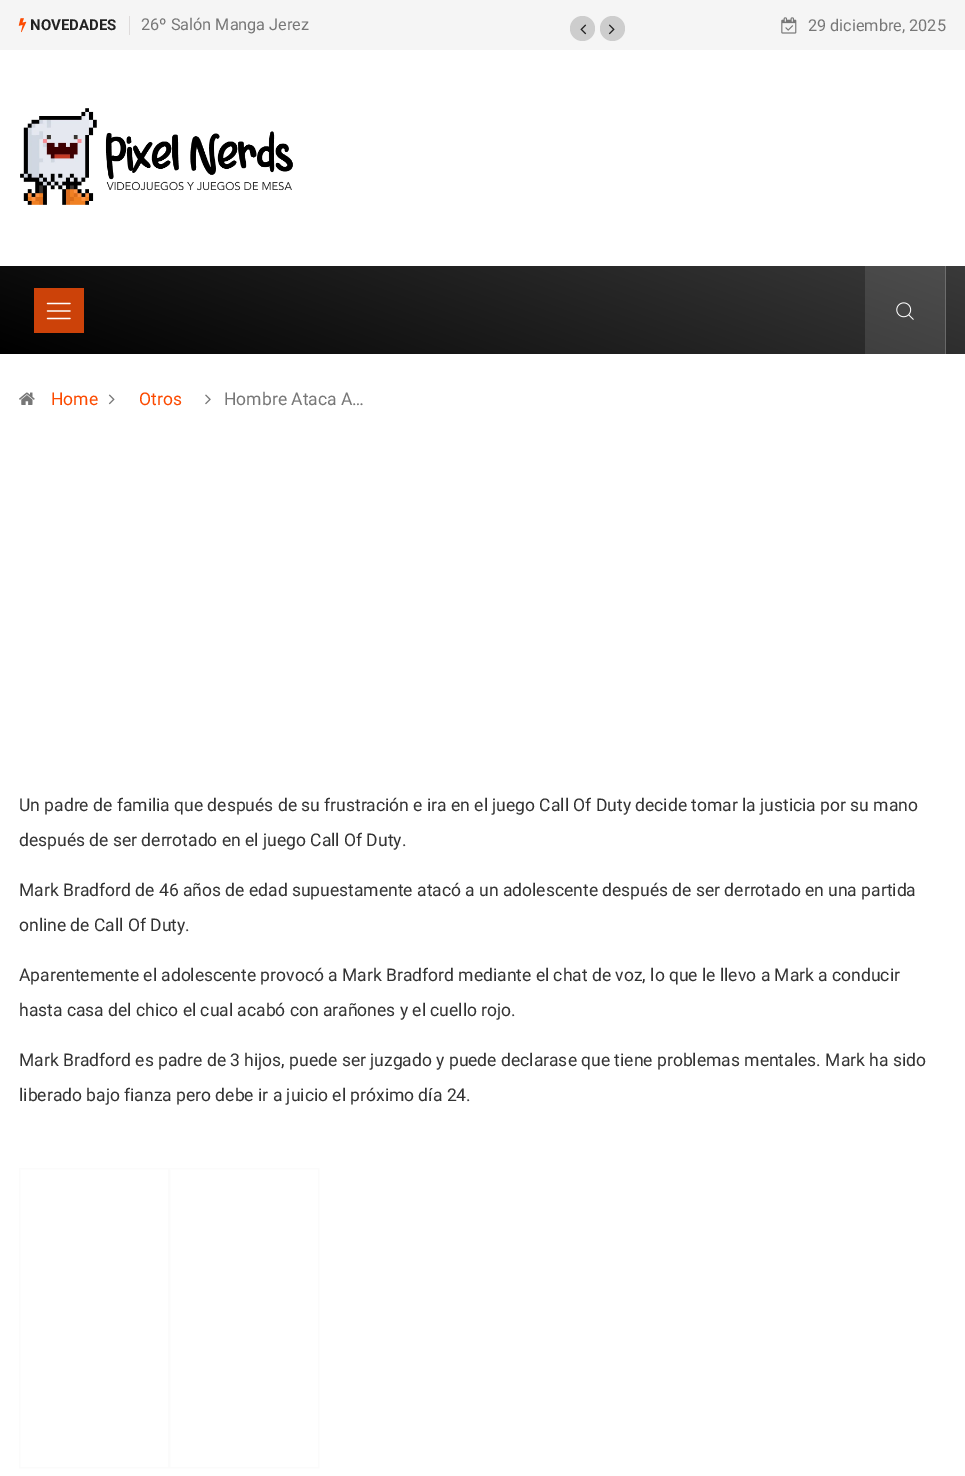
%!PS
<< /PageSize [965 1476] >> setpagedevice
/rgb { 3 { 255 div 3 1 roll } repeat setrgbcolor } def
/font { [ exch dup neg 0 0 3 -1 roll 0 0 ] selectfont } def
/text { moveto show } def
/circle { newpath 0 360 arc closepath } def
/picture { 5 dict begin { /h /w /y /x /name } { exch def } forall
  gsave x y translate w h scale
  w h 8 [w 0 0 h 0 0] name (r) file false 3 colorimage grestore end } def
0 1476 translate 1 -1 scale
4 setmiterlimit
255 255 255 rgb
0 0 965 1476 rectfill
245 245 245 rgb
0 0 965 50 rectfill
222 219 219 rgb
129 16 1 19 rectfill
(img_01.rgb) 18 18 9 15 picture
205 205 205 rgb
582.5 28.5 12.5 circle fill
(img_02.rgb) 580 24 7 11 picture
612.5 28.5 12.5 circle fill
(img_03.rgb) 608 24 7 11 picture
(img_04.rgb) 781 17 16 17 picture
(img_05.rgb) 20 108 273 97 picture
gsave 0 266 moveto 965 0 rlineto 0 88 rlineto -965 0 rlineto closepath clip newpath
<< /ShadingType 2 /ColorSpace /DeviceRGB /Coords [412 504 553 116] /Extend [true true] /Function << /FunctionType 2 /Domain [0 1] /C0 [0 0 0] /C1 [0.227 0.227 0.227] /N 1 >> >> shfill grestore
gsave 865 266 moveto 80 0 rlineto 0 88 rlineto -80 0 rlineto closepath clip newpath
<< /ShadingType 2 /ColorSpace /DeviceRGB /Coords [412 504 553 116] /Extend [true true] /Function << /FunctionType 2 /Domain [0 1] /C0 [0.102 0.102 0.102] /C1 [0.306 0.306 0.306] /N 1 >> >> shfill grestore
gsave 945 266 moveto 1 0 rlineto 0 88 rlineto -1 0 rlineto closepath clip newpath
<< /ShadingType 2 /ColorSpace /DeviceRGB /Coords [412 504 553 116] /Extend [true true] /Function << /FunctionType 2 /Domain [0 1] /C0 [0.282 0.282 0.282] /C1 [0.443 0.443 0.443] /N 1 >> >> shfill grestore
204 66 9 rgb
34 288 50 45 rectfill
(img_06.rgb) 46 302 25 18 picture
(img_07.rgb) 896 302 18 18 picture
(img_08.rgb) 19 392 16 13 picture
(img_09.rgb) 108 394 7 11 picture
(img_10.rgb) 205 394 6 11 picture
251 251 251 rgb
19.5 1168.5 149 299 rectstroke
169.5 1168.5 149 299 rectstroke
/Roboto-Bold 15 font
34 34 34 rgb
(NOVEDADES) 30 30 text
/Roboto-Regular 16.25 font
119 119 119 rgb
(26º Salón Manga Jerez) 141 30 text
(29 diciembre, 2025) 808 31 text
/Roboto-Regular 17.5 font
252 74 0 rgb
(Home) 51 405 text
(Otros) 139 405 text
119 119 119 rgb
(Hombre Ataca A…) 224 405 text
51 51 51 rgb
(Un padre de familia que después de su frustración e ira en el juego Call Of Duty decide tomar la justicia por su mano) 19 811 text
(después de ser derrotado en el juego Call Of Duty.) 19 846 text
(Mark Bradford de 46 años de edad supuestamente atacó a un adolescente después de ser derrotado en una partida) 19 896 text
(online de Call Of Duty.) 19 931 text
(Aparentemente el adolescente provocó a Mark Bradford mediante el chat de voz, lo que le llevo a Mark a conducir) 19 981 text
(hasta casa del chico el cual acabó con arañones y el cuello rojo.) 19 1016 text
(Mark Bradford es padre de 3 hijos, puede ser juzgado y puede declarase que tiene problemas mentales. Mark ha sido) 19 1066 text
(liberado bajo fianza pero debe ir a juicio el próximo día 24.) 19 1101 text
showpage
